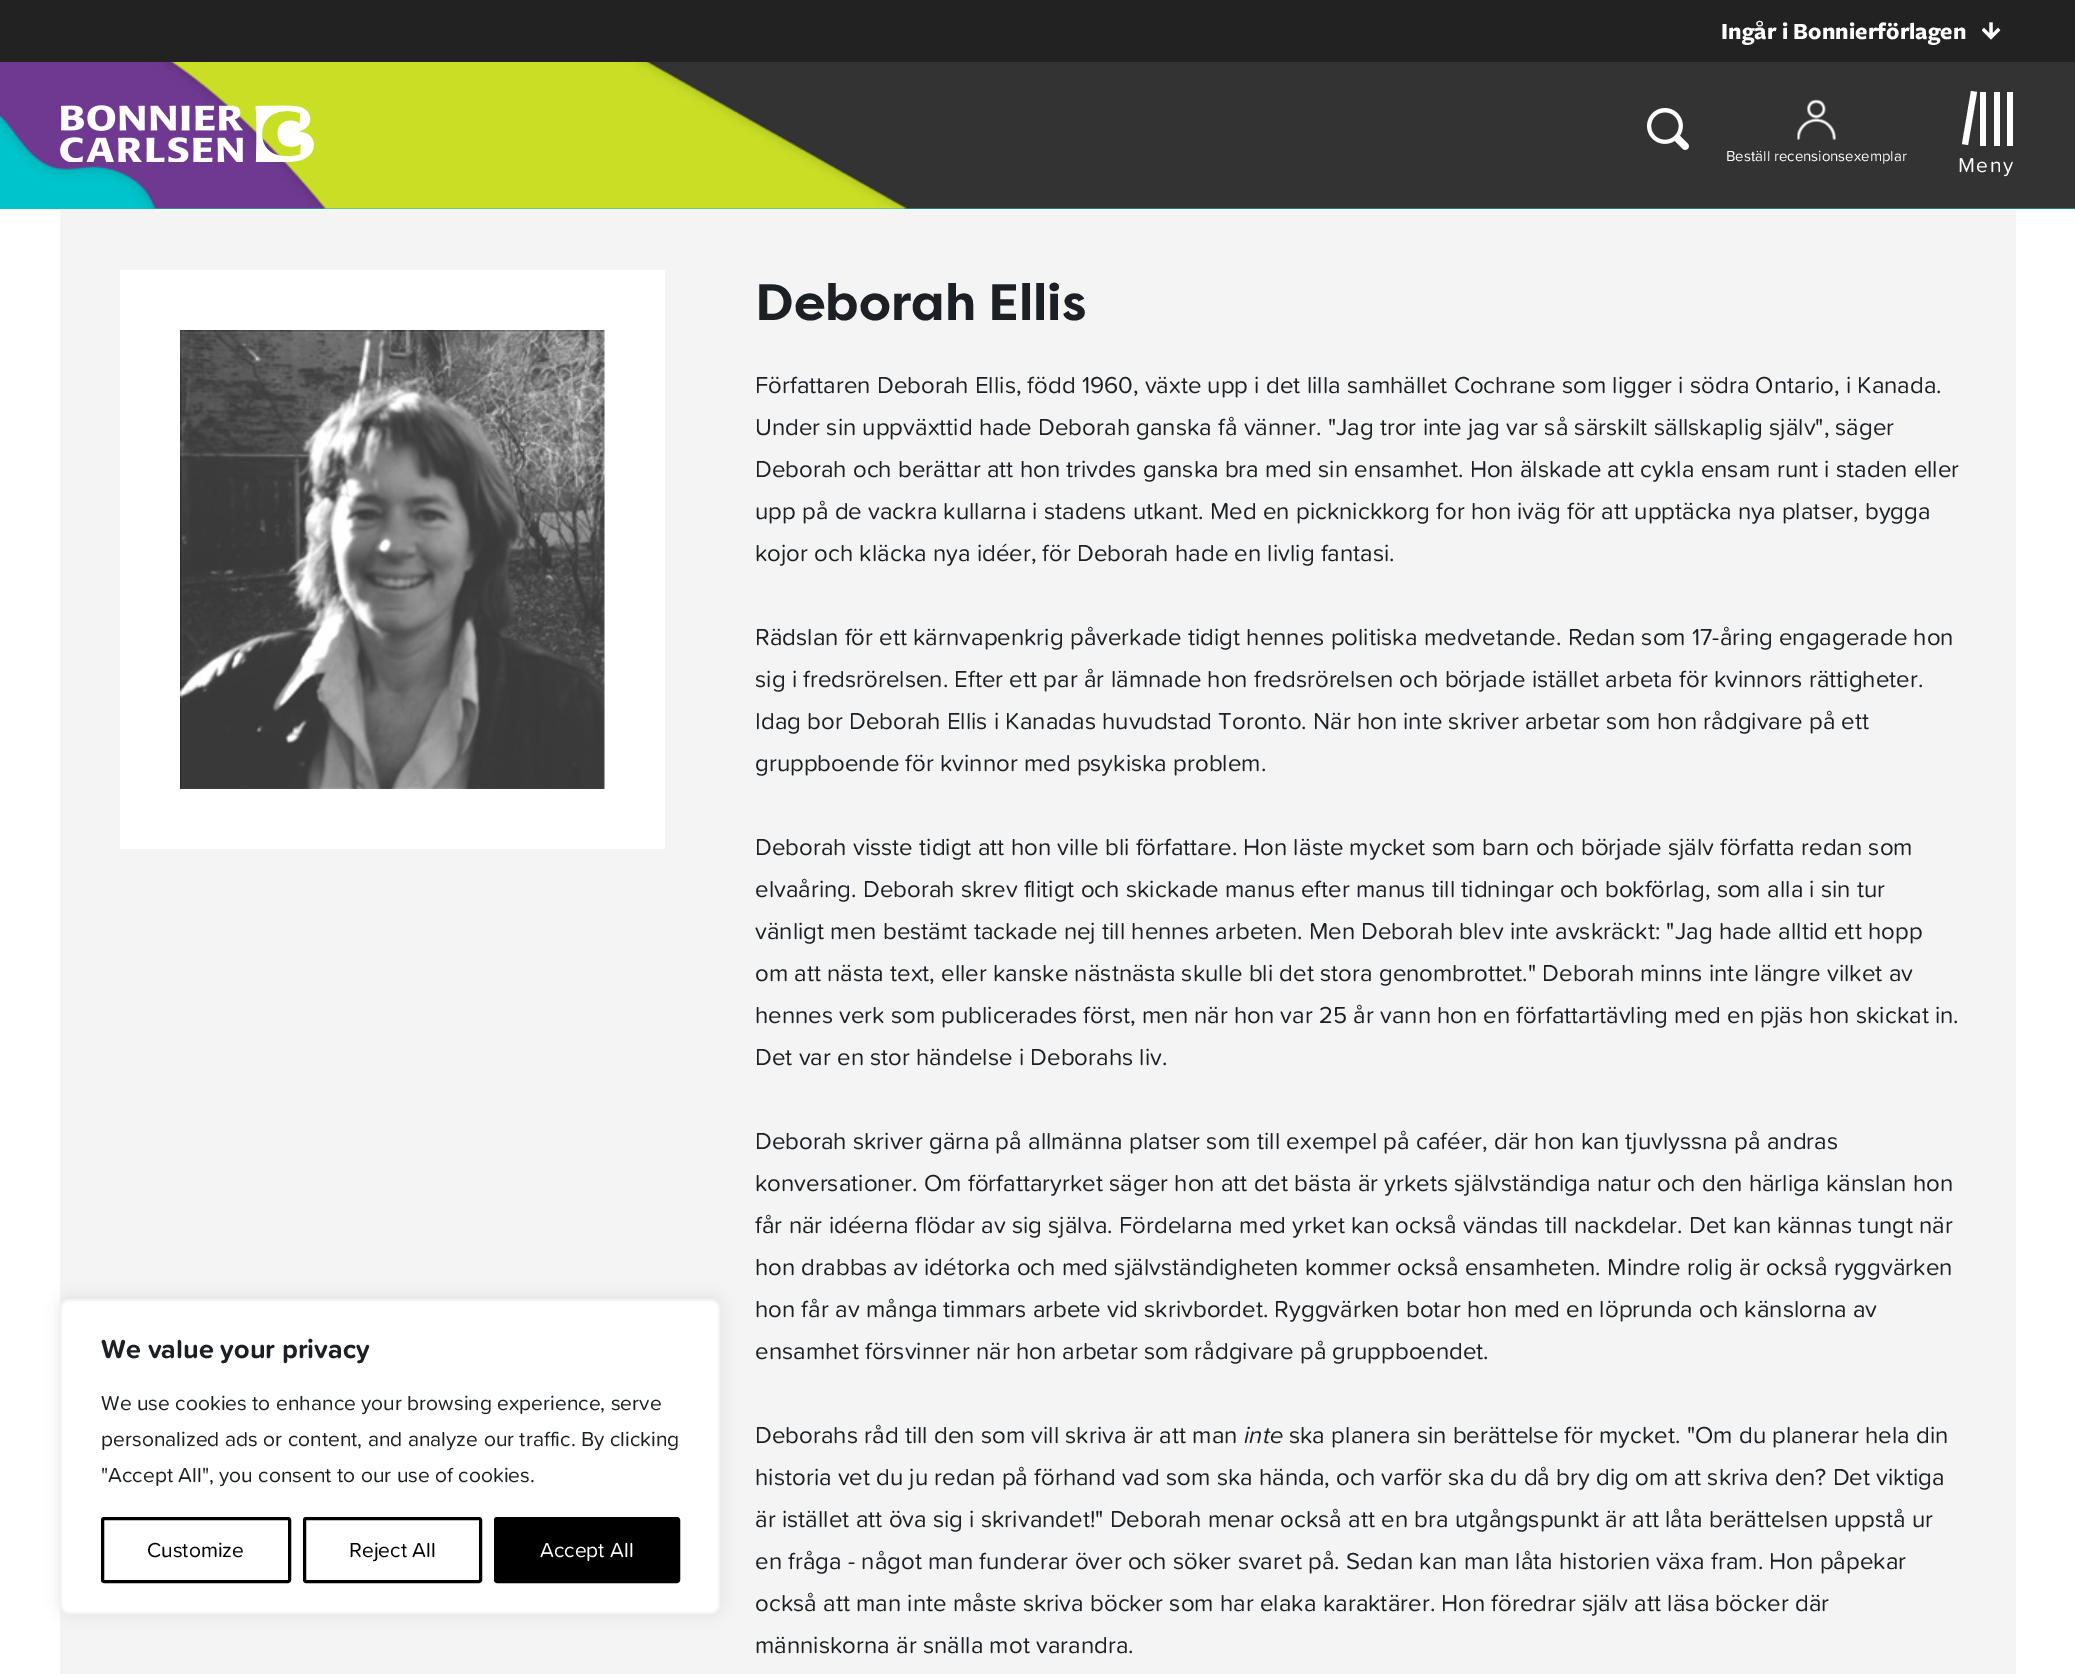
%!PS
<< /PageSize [2075 1674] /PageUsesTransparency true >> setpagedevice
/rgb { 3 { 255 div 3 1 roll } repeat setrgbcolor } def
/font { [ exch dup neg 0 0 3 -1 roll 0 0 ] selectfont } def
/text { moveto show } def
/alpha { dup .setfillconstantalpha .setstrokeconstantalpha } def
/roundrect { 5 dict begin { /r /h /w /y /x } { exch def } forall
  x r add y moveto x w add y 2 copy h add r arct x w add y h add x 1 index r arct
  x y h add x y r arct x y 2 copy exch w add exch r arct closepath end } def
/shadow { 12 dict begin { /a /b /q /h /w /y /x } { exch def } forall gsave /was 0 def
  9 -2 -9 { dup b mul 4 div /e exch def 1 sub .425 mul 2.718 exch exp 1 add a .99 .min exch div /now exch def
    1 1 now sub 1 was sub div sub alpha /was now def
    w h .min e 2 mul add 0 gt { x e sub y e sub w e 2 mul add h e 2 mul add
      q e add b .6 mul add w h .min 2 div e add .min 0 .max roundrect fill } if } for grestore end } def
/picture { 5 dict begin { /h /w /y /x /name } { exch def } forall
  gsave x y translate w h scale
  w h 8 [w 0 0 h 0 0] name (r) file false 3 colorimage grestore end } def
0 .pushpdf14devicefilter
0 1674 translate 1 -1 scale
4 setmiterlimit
255 255 255 rgb
0 0 2075 1674 rectfill
244 244 244 rgb
60 210 1956 1464 rectfill
172 171 171 rgb
60 1298 660 315 9 7.5 0.3 shadow
255 255 255 rgb
61 1300 658 313 8 roundrect gsave fill grestore
244 244 244 rgb
2 setlinewidth
stroke
0 0 0 rgb
3 setlinewidth
102.5 1518.5 187 63 1.5 roundrect stroke
304.5 1518.5 176 63 1.5 roundrect stroke
495.5 1518.5 183 63 1.5 roundrect gsave fill grestore
stroke
34 34 34 rgb
0 0 2075 62 rectfill
(img_01.rgb) 1982 22 19 18 picture
0 196 204 rgb
0 208 2075 1 rectfill
(img_02.rgb) 0 62 2075 147 picture
(img_03.rgb) 60 105 254 57 picture
(img_04.rgb) 1647 108 42 42 picture
(img_05.rgb) 1797 99 39 41 picture
255 255 255 rgb
1971 91 moveto 6 1 rlineto -9 53 rlineto -6 -1 rlineto closepath fill
1980 92 6 54 rectfill
1994 92 6 54 rectfill
2007 92 6 54 rectfill
120 270 545 579 rectfill
(img_06.rgb) 180 330 425 459 picture
/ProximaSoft-Bold 27 font
28 32 36 rgb
(We value your privacy) 101 1358 text
/ProximaSoft-Regular 21 font
(We use cookies to enhance your browsing experience, serve) 101 1410 text
(personalized ads or content, and analyze our traffic. By clicking) 101 1446 text
("Accept All", you consent to our use of cookies.) 101 1482 text
0 0 0 rgb
(Customize) 147 1557 text
(Reject All) 349 1557 text
255 255 255 rgb
(Accept All) 540 1557 text
/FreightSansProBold-Bold 24 font
(Ingår i Bonnierförlagen) 1721 39 text
/ProximaSoft-Regular 15 font
(Beställ recensionsexemplar) 1726 161 text
/ProximaSoft-Regular 21 font
1958 172 moveto 1.5 0 (Meny) ashow
/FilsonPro-Bold 51 font
28 32 36 rgb
(Deborah Ellis) 755 320 text
/ProximaSoft-Regular 24 font
(Författaren Deborah Ellis, född 1960, växte upp i det lilla samhället Cochrane som ligger i södra Ontario, i Kanada.) 755 393 text
(Under sin uppväxttid hade Deborah ganska få vänner. "Jag tror inte jag var så särskilt sällskaplig själv", säger) 755 435 text
(Deborah och berättar att hon trivdes ganska bra med sin ensamhet. Hon älskade att cykla ensam runt i staden eller) 755 477 text
(upp på de vackra kullarna i stadens utkant. Med en picknickkorg for hon iväg för att upptäcka nya platser, bygga) 755 519 text
(kojor och kläcka nya idéer, för Deborah hade en livlig fantasi.) 755 561 text
(Rädslan för ett kärnvapenkrig påverkade tidigt hennes politiska medvetande. Redan som 17-åring engagerade hon) 755 645 text
(sig i fredsrörelsen. Efter ett par år lämnade hon fredsrörelsen och började istället arbeta för kvinnors rättigheter.) 755 687 text
(Idag bor Deborah Ellis i Kanadas huvudstad Toronto. När hon inte skriver arbetar som hon rådgivare på ett) 755 729 text
(gruppboende för kvinnor med psykiska problem.) 755 771 text
(Deborah visste tidigt att hon ville bli författare. Hon läste mycket som barn och började själv författa redan som) 755 855 text
(elvaåring. Deborah skrev flitigt och skickade manus efter manus till tidningar och bokförlag, som alla i sin tur) 755 897 text
(vänligt men bestämt tackade nej till hennes arbeten. Men Deborah blev inte avskräckt: "Jag hade alltid ett hopp) 755 939 text
(om att nästa text, eller kanske nästnästa skulle bli det stora genombrottet." Deborah minns inte längre vilket av) 755 981 text
(hennes verk som publicerades först, men när hon var 25 år vann hon en författartävling med en pjäs hon skickat in.) 755 1023 text
(Det var en stor händelse i Deborahs liv.) 755 1065 text
(Deborah skriver gärna på allmänna platser som till exempel på caféer, där hon kan tjuvlyssna på andras) 755 1149 text
(konversationer. Om författaryrket säger hon att det bästa är yrkets självständiga natur och den härliga känslan hon) 755 1191 text
(får när idéerna flödar av sig själva. Fördelarna med yrket kan också vändas till nackdelar. Det kan kännas tungt när) 755 1233 text
(hon drabbas av idétorka och med självständigheten kommer också ensamheten. Mindre rolig är också ryggvärken) 755 1275 text
(hon får av många timmars arbete vid skrivbordet. Ryggvärken botar hon med en löprunda och känslorna av) 755 1317 text
(ensamhet försvinner när hon arbetar som rådgivare på gruppboendet.) 755 1359 text
(Deborahs råd till den som vill skriva är att man) 755 1443 text
/ProximaSoft-Italic 24 font
(inte) 1244 1443 text
/ProximaSoft-Regular 24 font
(ska planera sin berättelse för mycket. "Om du planerar hela din) 1289 1443 text
(historia vet du ju redan på förhand vad som ska hända, och varför ska du då bry dig om att skriva den? Det viktiga) 755 1485 text
(är istället att öva sig i skrivandet!" Deborah menar också att en bra utgångspunkt är att låta berättelsen uppstå ur) 755 1527 text
(en fråga - något man funderar över och söker svaret på. Sedan kan man låta historien växa fram. Hon påpekar) 755 1569 text
(också att man inte måste skriva böcker som har elaka karaktärer. Hon föredrar själv att läsa böcker där) 755 1611 text
(människorna är snälla mot varandra.) 755 1653 text
.poppdf14devicefilter showpage
